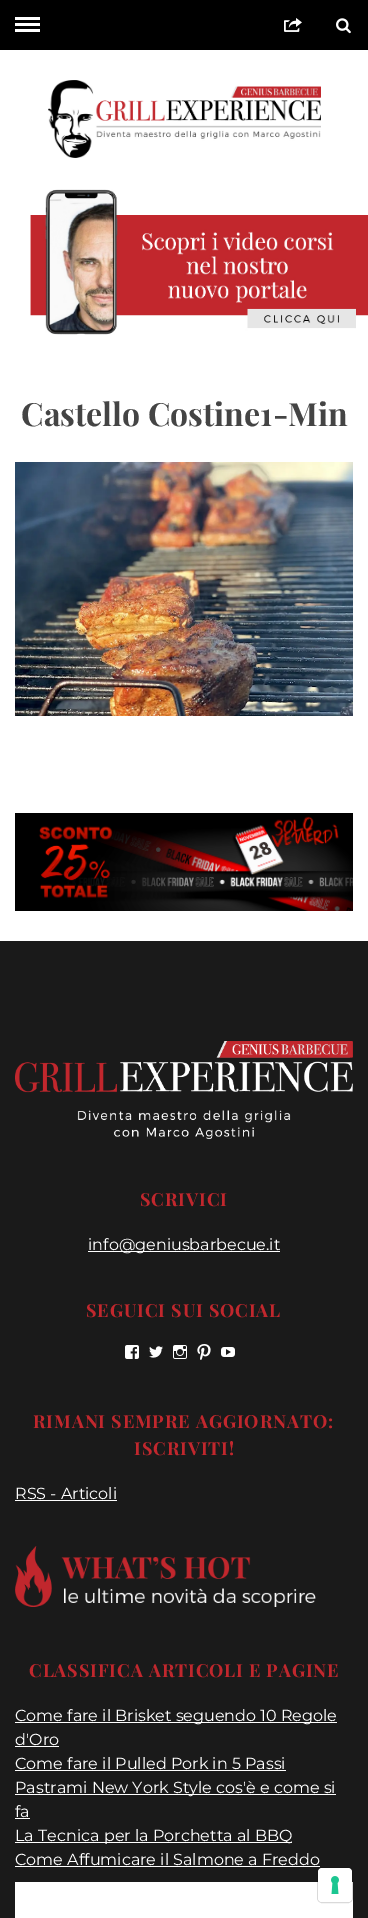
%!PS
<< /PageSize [368 1918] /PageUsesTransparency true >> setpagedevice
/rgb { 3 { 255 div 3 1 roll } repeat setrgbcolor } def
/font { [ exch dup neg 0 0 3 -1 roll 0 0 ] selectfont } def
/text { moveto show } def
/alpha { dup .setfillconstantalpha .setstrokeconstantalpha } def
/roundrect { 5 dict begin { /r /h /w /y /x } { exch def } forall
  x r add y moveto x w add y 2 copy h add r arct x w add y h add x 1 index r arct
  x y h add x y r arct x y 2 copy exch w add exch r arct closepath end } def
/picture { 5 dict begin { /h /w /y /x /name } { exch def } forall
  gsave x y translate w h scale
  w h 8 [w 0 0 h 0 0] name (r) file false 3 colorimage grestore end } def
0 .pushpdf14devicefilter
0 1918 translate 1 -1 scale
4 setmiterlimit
255 255 255 rgb
0 0 368 1918 rectfill
0 0 0 rgb
0 0 368 50 rectfill
255 255 255 rgb
15 23 25 3 rectfill
15 17 25 3 rectfill
15 29 25 3 rectfill
(img_01.rgb) 284 18 18 14 picture
(img_02.rgb) 336 18 15 16 picture
(img_03.rgb) 48 80 273 78 picture
(img_04.rgb) 30 189 338 146 picture
(img_05.rgb) 15 462 338 254 picture
(img_06.rgb) 15 813 338 98 picture
26 26 26 rgb
0 941 368 977 rectfill
(img_07.rgb) 15 1041 338 98 picture
255 255 255 rgb
88 1251 192 1 rectfill
(img_08.rgb) 125 1345 14 14 picture
(img_09.rgb) 149 1346 14 12 picture
(img_10.rgb) 173 1345 14 14 picture
(img_11.rgb) 197 1344 14 16 picture
(img_12.rgb) 221 1347 14 10 picture
15 1500 102 1 rectfill
(img_13.rgb) 15 1546 301 61 picture
15 1722 322 1 rectfill
15 1746 44 1 rectfill
15 1770 271 1 rectfill
15 1794 321 1 rectfill
15 1818 15 1 rectfill
15 1842 277 1 rectfill
15 1866 305 1 rectfill
15 1882 338 36 rectfill
0.15 alpha
0 0 0 rgb
317.5 1867.5 35 35 4.5 roundrect stroke
1 alpha
255 255 255 rgb
318 1868 34 34 4 roundrect fill
(img_14.rgb) 331 1876 8 18 picture
/PlayfairDisplay-Bold 32 font
68 68 68 rgb
(Castello Costine1-Min) 21 426 text
/PlayfairDisplay-Bold 18 font
193 39 45 rgb
140 1206 moveto 0.9 0 (SCRIVICI) ashow
/Montserrat-Regular 16 font
255 255 255 rgb
(info@geniusbarbecue.it) 88 1250 text
/PlayfairDisplay-Bold 18 font
193 39 45 rgb
86 1317 moveto 0.9 0 (SEGUICI SUI SOCIAL) ashow
33 1428 moveto 0.9 0 (RIMANI SEMPRE AGGIORNATO:) ashow
134 1455 moveto 0.9 0 (ISCRIVITI!) ashow
/Montserrat-Regular 16 font
255 255 255 rgb
(RSS - Articoli) 15 1499 text
/PlayfairDisplay-Bold 18 font
193 39 45 rgb
29 1677 moveto 0.9 0 (CLASSIFICA ARTICOLI E PAGINE) ashow
/Montserrat-Regular 16 font
255 255 255 rgb
(Come fare il Brisket seguendo 10 Regole) 15 1721 text
(d'Oro) 15 1745 text
(Come fare il Pulled Pork in 5 Passi) 15 1769 text
(Pastrami New York Style cos'è e come si) 15 1793 text
(fa) 15 1817 text
(La Tecnica per la Porchetta al BBQ) 15 1841 text
(Come Affumicare il Salmone a Freddo) 15 1865 text
.poppdf14devicefilter showpage
